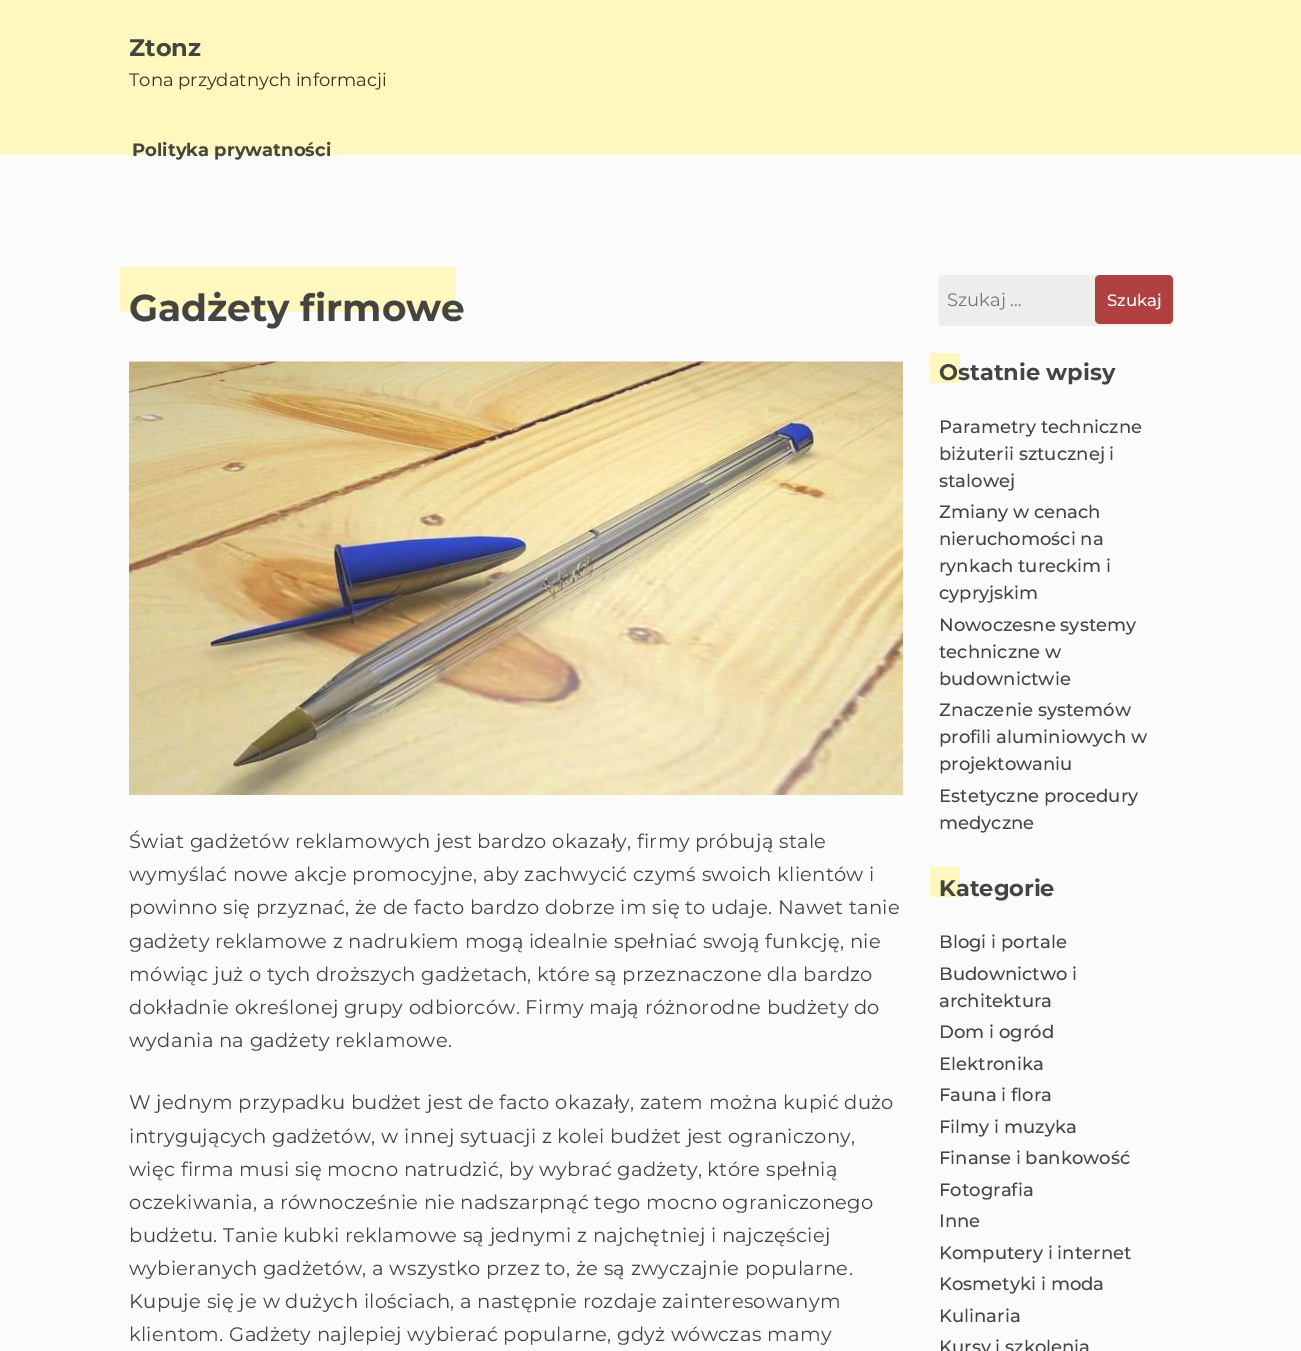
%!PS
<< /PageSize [1301 1351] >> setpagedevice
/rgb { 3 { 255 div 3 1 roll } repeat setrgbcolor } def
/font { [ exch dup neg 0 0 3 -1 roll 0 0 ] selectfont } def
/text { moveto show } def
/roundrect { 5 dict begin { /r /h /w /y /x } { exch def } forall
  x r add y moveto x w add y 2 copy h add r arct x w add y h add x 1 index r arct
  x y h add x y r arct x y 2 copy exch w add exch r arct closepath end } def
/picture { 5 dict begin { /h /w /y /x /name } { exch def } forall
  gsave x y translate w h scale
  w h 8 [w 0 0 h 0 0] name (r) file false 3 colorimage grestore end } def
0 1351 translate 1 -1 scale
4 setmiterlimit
251 251 251 rgb
0 0 1301 1351 rectfill
255 248 190 rgb
0 0 1301 155 rectfill
120 267 336 45 rectfill
(img_01.rgb) 129 361 774 434 picture
238 238 238 rgb
939 275 234 51 3 roundrect fill
177 65 65 rgb
1095 275 78 49 5 roundrect fill
255 248 190 rgb
930 353 30 30 rectfill
930 867 30 30 rectfill
/Montserrat-Bold 24 font
68 68 64 rgb
(Ztonz) 129 56 text
/Montserrat-Regular 18 font
56 54 31 rgb
(Tona przydatnych informacji) 129 86 text
/Montserrat-Bold 18 font
68 68 64 rgb
(Polityka prywatności) 132 156 text
/Montserrat-Bold 37.5 font
(Gadżety firmowe) 129 321 text
/Montserrat-Regular 19.5 font
129 848 moveto 0.3 0 (Świat gadżetów reklamowych jest bardzo okazały, firmy próbują stale) ashow
129 881 moveto 0.3 0 (wymyślać nowe akcje promocyjne, aby zachwycić czymś swoich klientów i) ashow
129 914 moveto 0.3 0 (powinno się przyznać, że de facto bardzo dobrze im się to udaje. Nawet tanie) ashow
129 948 moveto 0.3 0 (gadżety reklamowe z nadrukiem mogą idealnie spełniać swoją funkcję, nie) ashow
129 981 moveto 0.3 0 (mówiąc już o tych droższych gadżetach, które są przeznaczone dla bardzo) ashow
129 1014 moveto 0.3 0 (dokładnie określonej grupy odbiorców. Firmy mają różnorodne budżety do) ashow
129 1047 moveto 0.3 0 (wydania na gadżety reklamowe.) ashow
129 1109 moveto 0.3 0 (W jednym przypadku budżet jest de facto okazały, zatem można kupić dużo) ashow
129 1143 moveto 0.3 0 (intrygujących gadżetów, w innej sytuacji z kolei budżet jest ograniczony,) ashow
129 1176 moveto 0.3 0 (więc firma musi się mocno natrudzić, by wybrać gadżety, które spełnią) ashow
129 1209 moveto 0.3 0 (oczekiwania, a równocześnie nie nadszarpnąć tego mocno ograniczonego) ashow
129 1242 moveto 0.3 0 (budżetu. Tanie kubki reklamowe są jednymi z najchętniej i najczęściej) ashow
129 1275 moveto 0.3 0 (wybieranych gadżetów, a wszystko przez to, że są zwyczajnie popularne.) ashow
129 1308 moveto 0.3 0 (Kupuje się je w dużych ilościach, a następnie rozdaje zainteresowanym) ashow
129 1341 moveto 0.3 0 (klientom. Gadżety najlepiej wybierać popularne, gdyż wówczas mamy) ashow
/Montserrat-Regular 18 font
117 117 117 rgb
(Szukaj …) 947 306 text
/Montserrat-Medium 16.5 font
251 251 251 rgb
(Szukaj) 1107 306 text
/Montserrat-Bold 22.5 font
68 68 64 rgb
(Ostatnie wpisy) 939 380 text
/Montserrat-Medium 18 font
(Parametry techniczne) 939 433 text
(biżuterii sztucznej i) 939 460 text
(stalowej) 939 487 text
(Zmiany w cenach) 939 518 text
(nieruchomości na) 939 545 text
(rynkach tureckim i) 939 572 text
(cypryjskim) 939 599 text
(Nowoczesne systemy) 939 631 text
(techniczne w) 939 658 text
(budownictwie) 939 685 text
(Znaczenie systemów) 939 716 text
(profili aluminiowych w) 939 743 text
(projektowaniu) 939 770 text
(Estetyczne procedury) 939 802 text
(medyczne) 939 829 text
/Montserrat-Bold 22.5 font
(Kategorie) 939 896 text
/Montserrat-Medium 18 font
(Blogi i portale) 939 948 text
(Budownictwo i) 939 980 text
(architektura) 939 1007 text
(Dom i ogród) 939 1038 text
(Elektronika) 939 1070 text
(Fauna i flora) 939 1101 text
(Filmy i muzyka) 939 1133 text
(Finanse i bankowość) 939 1164 text
(Fotografia) 939 1196 text
(Inne) 939 1227 text
(Komputery i internet) 939 1259 text
(Kosmetyki i moda) 939 1290 text
(Kulinaria) 939 1322 text
(Kursy i szkolenia) 939 1353 text
showpage
